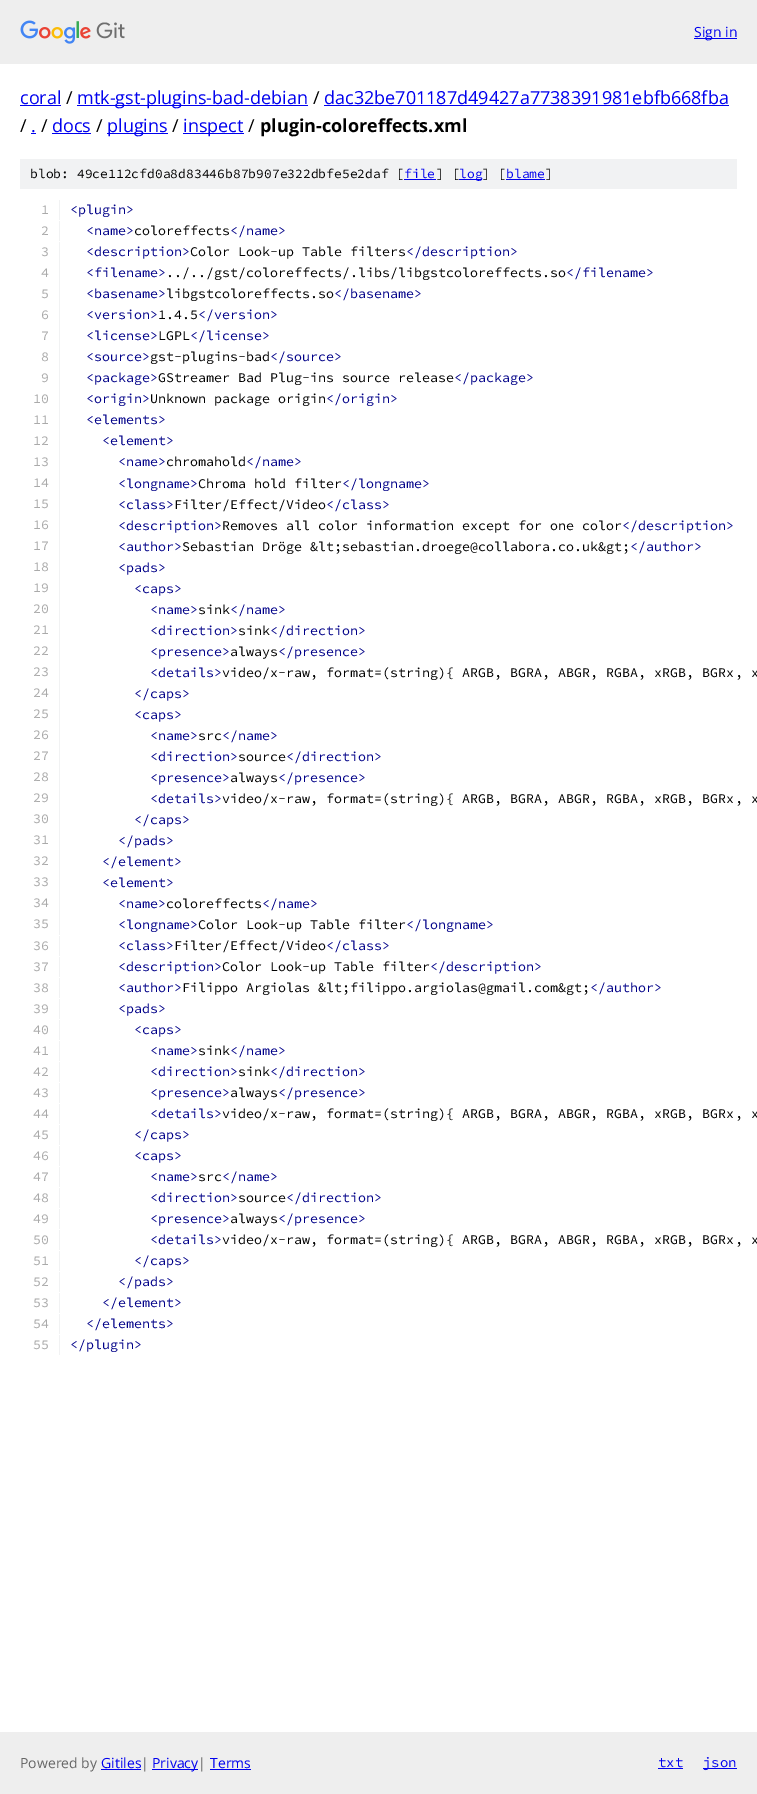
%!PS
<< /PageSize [757 1794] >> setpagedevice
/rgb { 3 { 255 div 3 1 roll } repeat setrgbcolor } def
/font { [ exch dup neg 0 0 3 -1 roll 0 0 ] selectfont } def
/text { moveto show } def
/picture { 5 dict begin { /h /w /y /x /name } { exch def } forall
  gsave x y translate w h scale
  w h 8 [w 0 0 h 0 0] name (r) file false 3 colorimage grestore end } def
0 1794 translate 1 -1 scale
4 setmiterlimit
255 255 255 rgb
0 0 757 1794 rectfill
238 238 238 rgb
0 0 757 64 rectfill
(img_01.rgb) 20 20 105 24 picture
0 0 238 rgb
694 38 43 1 rectfill
20 105 41 1 rectfill
77 105 231 1 rectfill
324 105 405 1 rectfill
31 133 5 1 rectfill
52 133 39 1 rectfill
107 133 61 1 rectfill
183 133 61 1 rectfill
241 242 243 rgb
20 159 717 30 rectfill
0 0 238 rgb
404 179 32 1 rectfill
459 179 23 1 rectfill
506 179 39 1 rectfill
241 242 243 rgb
59 200 1 20 rectfill
59 221 1 20 rectfill
59 242 1 693 rectfill
59 936 1 20 rectfill
59 957 1 20 rectfill
59 978 1 20 rectfill
59 999 1 20 rectfill
59 1020 1 20 rectfill
59 1041 1 20 rectfill
59 1062 1 20 rectfill
59 1083 1 20 rectfill
59 1104 1 20 rectfill
59 1125 1 20 rectfill
59 1146 1 20 rectfill
59 1167 1 20 rectfill
59 1188 1 20 rectfill
59 1209 1 20 rectfill
59 1230 1 20 rectfill
59 1251 1 20 rectfill
59 1272 1 20 rectfill
59 1293 1 20 rectfill
59 1314 1 20 rectfill
59 1335 1 20 rectfill
238 238 238 rgb
0 1732 757 62 rectfill
0 0 238 rgb
101 1769 40 1 rectfill
152 1769 46 1 rectfill
210 1769 41 1 rectfill
658 1768 25 1 rectfill
703 1768 34 1 rectfill
/OpenSans-Regular 14 font
(Sign in) 694 37 text
/OpenSans-Regular 18 font
(coral) 20 104 text
0 0 0 rgb
(/) 66 104 text
0 0 238 rgb
(mtk-gst-plugins-bad-debian) 77 104 text
0 0 0 rgb
(/) 313 104 text
0 0 238 rgb
(dac32be701187d49427a7738391981ebfb668fba) 324 104 text
0 0 0 rgb
(/) 20 132 text
0 0 238 rgb
(.) 31 132 text
0 0 0 rgb
(/) 41 132 text
0 0 238 rgb
(docs) 52 132 text
0 0 0 rgb
(/) 96 132 text
0 0 238 rgb
(plugins) 107 132 text
0 0 0 rgb
(/) 172 132 text
0 0 238 rgb
(inspect) 183 132 text
0 0 0 rgb
(/) 248 132 text
/OpenSans-Bold 18 font
(plugin-coloreffects.xml) 260 132 text
/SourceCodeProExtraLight-ExtraLight 13 font
(blob: 49ce112cfd0a8d83446b87b907e322dbfe5e2daf [) 30 178 text
0 0 238 rgb
(file) 404 178 text
0 0 0 rgb
(] [) 436 178 text
0 0 238 rgb
(log) 459 178 text
0 0 0 rgb
(] [) 482 178 text
0 0 238 rgb
(blame) 506 178 text
0 0 0 rgb
(]) 545 178 text
/SourceCodeProExtraLight-ExtraLight 13.35 font
170 170 170 rgb
(1) 41 214 text
0 0 136 rgb
(<plugin>) 70 214 text
170 170 170 rgb
(2) 41 235 text
0 0 136 rgb
(<name>) 86 235 text
0 0 0 rgb
(coloreffects) 134 235 text
0 0 136 rgb
(</name>) 230 235 text
170 170 170 rgb
(3) 41 256 text
0 0 136 rgb
(<description>) 86 256 text
0 0 0 rgb
(Color Look-up Table filters) 190 256 text
0 0 136 rgb
(</description>) 406 256 text
170 170 170 rgb
(4) 41 277 text
0 0 136 rgb
(<filename>) 86 277 text
0 0 0 rgb
(../../gst/coloreffects/.libs/libgstcoloreffects.so) 166 277 text
0 0 136 rgb
(</filename>) 566 277 text
170 170 170 rgb
(5) 41 298 text
0 0 136 rgb
(<basename>) 86 298 text
0 0 0 rgb
(libgstcoloreffects.so) 166 298 text
0 0 136 rgb
(</basename>) 334 298 text
170 170 170 rgb
(6) 41 319 text
0 0 136 rgb
(<version>) 86 319 text
0 0 0 rgb
(1.4.5) 158 319 text
0 0 136 rgb
(</version>) 198 319 text
170 170 170 rgb
(7) 41 340 text
0 0 136 rgb
(<license>) 86 340 text
0 0 0 rgb
(LGPL) 158 340 text
0 0 136 rgb
(</license>) 190 340 text
170 170 170 rgb
(8) 41 361 text
0 0 136 rgb
(<source>) 86 361 text
0 0 0 rgb
(gst-plugins-bad) 150 361 text
0 0 136 rgb
(</source>) 270 361 text
170 170 170 rgb
(9) 41 382 text
0 0 136 rgb
(<package>) 86 382 text
0 0 0 rgb
(GStreamer Bad Plug-ins source release) 158 382 text
0 0 136 rgb
(</package>) 454 382 text
170 170 170 rgb
(10) 33 403 text
0 0 136 rgb
(<origin>) 86 403 text
0 0 0 rgb
(Unknown package origin) 150 403 text
0 0 136 rgb
(</origin>) 326 403 text
170 170 170 rgb
(11) 33 424 text
0 0 136 rgb
(<elements>) 86 424 text
170 170 170 rgb
(12) 33 445 text
0 0 136 rgb
(<element>) 102 445 text
170 170 170 rgb
(13) 33 466 text
0 0 136 rgb
(<name>) 118 466 text
0 0 0 rgb
(chromahold) 166 466 text
0 0 136 rgb
(</name>) 246 466 text
170 170 170 rgb
(14) 33 487 text
0 0 136 rgb
(<longname>) 118 488 text
0 0 0 rgb
(Chroma hold filter) 198 488 text
0 0 136 rgb
(</longname>) 342 488 text
170 170 170 rgb
(15) 33 508 text
0 0 136 rgb
(<class>) 118 509 text
0 0 0 rgb
(Filter/Effect/Video) 174 509 text
0 0 136 rgb
(</class>) 326 509 text
170 170 170 rgb
(16) 33 529 text
0 0 136 rgb
(<description>) 118 530 text
0 0 0 rgb
(Removes all color information except for one color) 222 530 text
0 0 136 rgb
(</description>) 622 530 text
170 170 170 rgb
(17) 33 550 text
0 0 136 rgb
(<author>) 118 551 text
0 0 0 rgb
(Sebastian Dröge &lt;sebastian.droege@collabora.co.uk&gt;) 182 551 text
0 0 136 rgb
(</author>) 630 551 text
170 170 170 rgb
(18) 33 571 text
0 0 136 rgb
(<pads>) 118 572 text
170 170 170 rgb
(19) 33 592 text
0 0 136 rgb
(<caps>) 134 593 text
170 170 170 rgb
(20) 33 613 text
0 0 136 rgb
(<name>) 150 614 text
0 0 0 rgb
(sink) 198 614 text
0 0 136 rgb
(</name>) 230 614 text
170 170 170 rgb
(21) 33 634 text
0 0 136 rgb
(<direction>) 150 635 text
0 0 0 rgb
(sink) 238 635 text
0 0 136 rgb
(</direction>) 270 635 text
170 170 170 rgb
(22) 33 655 text
0 0 136 rgb
(<presence>) 150 656 text
0 0 0 rgb
(always) 230 656 text
0 0 136 rgb
(</presence>) 278 656 text
170 170 170 rgb
(23) 33 676 text
0 0 136 rgb
(<details>) 150 677 text
0 0 0 rgb
(video/x-raw, format=\(string\){ ARGB, BGRA, ABGR, RGBA, xRGB, BGRx, x) 222 677 text
170 170 170 rgb
(24) 33 697 text
0 0 136 rgb
(</caps>) 134 698 text
170 170 170 rgb
(25) 33 718 text
0 0 136 rgb
(<caps>) 134 719 text
170 170 170 rgb
(26) 33 739 text
0 0 136 rgb
(<name>) 150 740 text
0 0 0 rgb
(src) 198 740 text
0 0 136 rgb
(</name>) 222 740 text
170 170 170 rgb
(27) 33 760 text
0 0 136 rgb
(<direction>) 150 761 text
0 0 0 rgb
(source) 238 761 text
0 0 136 rgb
(</direction>) 286 761 text
170 170 170 rgb
(28) 33 781 text
0 0 136 rgb
(<presence>) 150 782 text
0 0 0 rgb
(always) 230 782 text
0 0 136 rgb
(</presence>) 278 782 text
170 170 170 rgb
(29) 33 802 text
0 0 136 rgb
(<details>) 150 803 text
0 0 0 rgb
(video/x-raw, format=\(string\){ ARGB, BGRA, ABGR, RGBA, xRGB, BGRx, x) 222 803 text
170 170 170 rgb
(30) 33 823 text
0 0 136 rgb
(</caps>) 134 824 text
170 170 170 rgb
(31) 33 844 text
0 0 136 rgb
(</pads>) 118 845 text
170 170 170 rgb
(32) 33 865 text
0 0 136 rgb
(</element>) 102 866 text
170 170 170 rgb
(33) 33 886 text
0 0 136 rgb
(<element>) 102 887 text
170 170 170 rgb
(34) 33 907 text
0 0 136 rgb
(<name>) 118 908 text
0 0 0 rgb
(coloreffects) 166 908 text
0 0 136 rgb
(</name>) 262 908 text
170 170 170 rgb
(35) 33 928 text
0 0 136 rgb
(<longname>) 118 929 text
0 0 0 rgb
(Color Look-up Table filter) 198 929 text
0 0 136 rgb
(</longname>) 406 929 text
170 170 170 rgb
(36) 33 950 text
0 0 136 rgb
(<class>) 118 950 text
0 0 0 rgb
(Filter/Effect/Video) 174 950 text
0 0 136 rgb
(</class>) 326 950 text
170 170 170 rgb
(37) 33 971 text
0 0 136 rgb
(<description>) 118 971 text
0 0 0 rgb
(Color Look-up Table filter) 222 971 text
0 0 136 rgb
(</description>) 430 971 text
170 170 170 rgb
(38) 33 992 text
0 0 136 rgb
(<author>) 118 992 text
0 0 0 rgb
(Filippo Argiolas &lt;filippo.argiolas@gmail.com&gt;) 182 992 text
0 0 136 rgb
(</author>) 590 992 text
170 170 170 rgb
(39) 33 1013 text
0 0 136 rgb
(<pads>) 118 1013 text
170 170 170 rgb
(40) 33 1034 text
0 0 136 rgb
(<caps>) 134 1034 text
170 170 170 rgb
(41) 33 1055 text
0 0 136 rgb
(<name>) 150 1055 text
0 0 0 rgb
(sink) 198 1055 text
0 0 136 rgb
(</name>) 230 1055 text
170 170 170 rgb
(42) 33 1076 text
0 0 136 rgb
(<direction>) 150 1076 text
0 0 0 rgb
(sink) 238 1076 text
0 0 136 rgb
(</direction>) 270 1076 text
170 170 170 rgb
(43) 33 1097 text
0 0 136 rgb
(<presence>) 150 1097 text
0 0 0 rgb
(always) 230 1097 text
0 0 136 rgb
(</presence>) 278 1097 text
170 170 170 rgb
(44) 33 1118 text
0 0 136 rgb
(<details>) 150 1118 text
0 0 0 rgb
(video/x-raw, format=\(string\){ ARGB, BGRA, ABGR, RGBA, xRGB, BGRx, x) 222 1118 text
170 170 170 rgb
(45) 33 1139 text
0 0 136 rgb
(</caps>) 134 1139 text
170 170 170 rgb
(46) 33 1160 text
0 0 136 rgb
(<caps>) 134 1160 text
170 170 170 rgb
(47) 33 1181 text
0 0 136 rgb
(<name>) 150 1181 text
0 0 0 rgb
(src) 198 1181 text
0 0 136 rgb
(</name>) 222 1181 text
170 170 170 rgb
(48) 33 1202 text
0 0 136 rgb
(<direction>) 150 1202 text
0 0 0 rgb
(source) 238 1202 text
0 0 136 rgb
(</direction>) 286 1202 text
170 170 170 rgb
(49) 33 1223 text
0 0 136 rgb
(<presence>) 150 1223 text
0 0 0 rgb
(always) 230 1223 text
0 0 136 rgb
(</presence>) 278 1223 text
170 170 170 rgb
(50) 33 1244 text
0 0 136 rgb
(<details>) 150 1244 text
0 0 0 rgb
(video/x-raw, format=\(string\){ ARGB, BGRA, ABGR, RGBA, xRGB, BGRx, x) 222 1244 text
170 170 170 rgb
(51) 33 1265 text
0 0 136 rgb
(</caps>) 134 1265 text
170 170 170 rgb
(52) 33 1286 text
0 0 136 rgb
(</pads>) 118 1286 text
170 170 170 rgb
(53) 33 1307 text
0 0 136 rgb
(</element>) 102 1307 text
170 170 170 rgb
(54) 33 1328 text
0 0 136 rgb
(</elements>) 86 1328 text
170 170 170 rgb
(55) 33 1349 text
0 0 136 rgb
(</plugin>) 70 1349 text
/OpenSans-Regular 14 font
102 102 102 rgb
(Powered by) 20 1768 text
0 0 238 rgb
(Gitiles) 101 1768 text
102 102 102 rgb
(|) 141 1768 text
0 0 238 rgb
(Privacy) 152 1768 text
102 102 102 rgb
(|) 198 1768 text
0 0 238 rgb
(Terms) 210 1768 text
/SourceCodeProExtraLight-ExtraLight 14 font
(txt) 658 1767 text
(json) 703 1767 text
showpage
